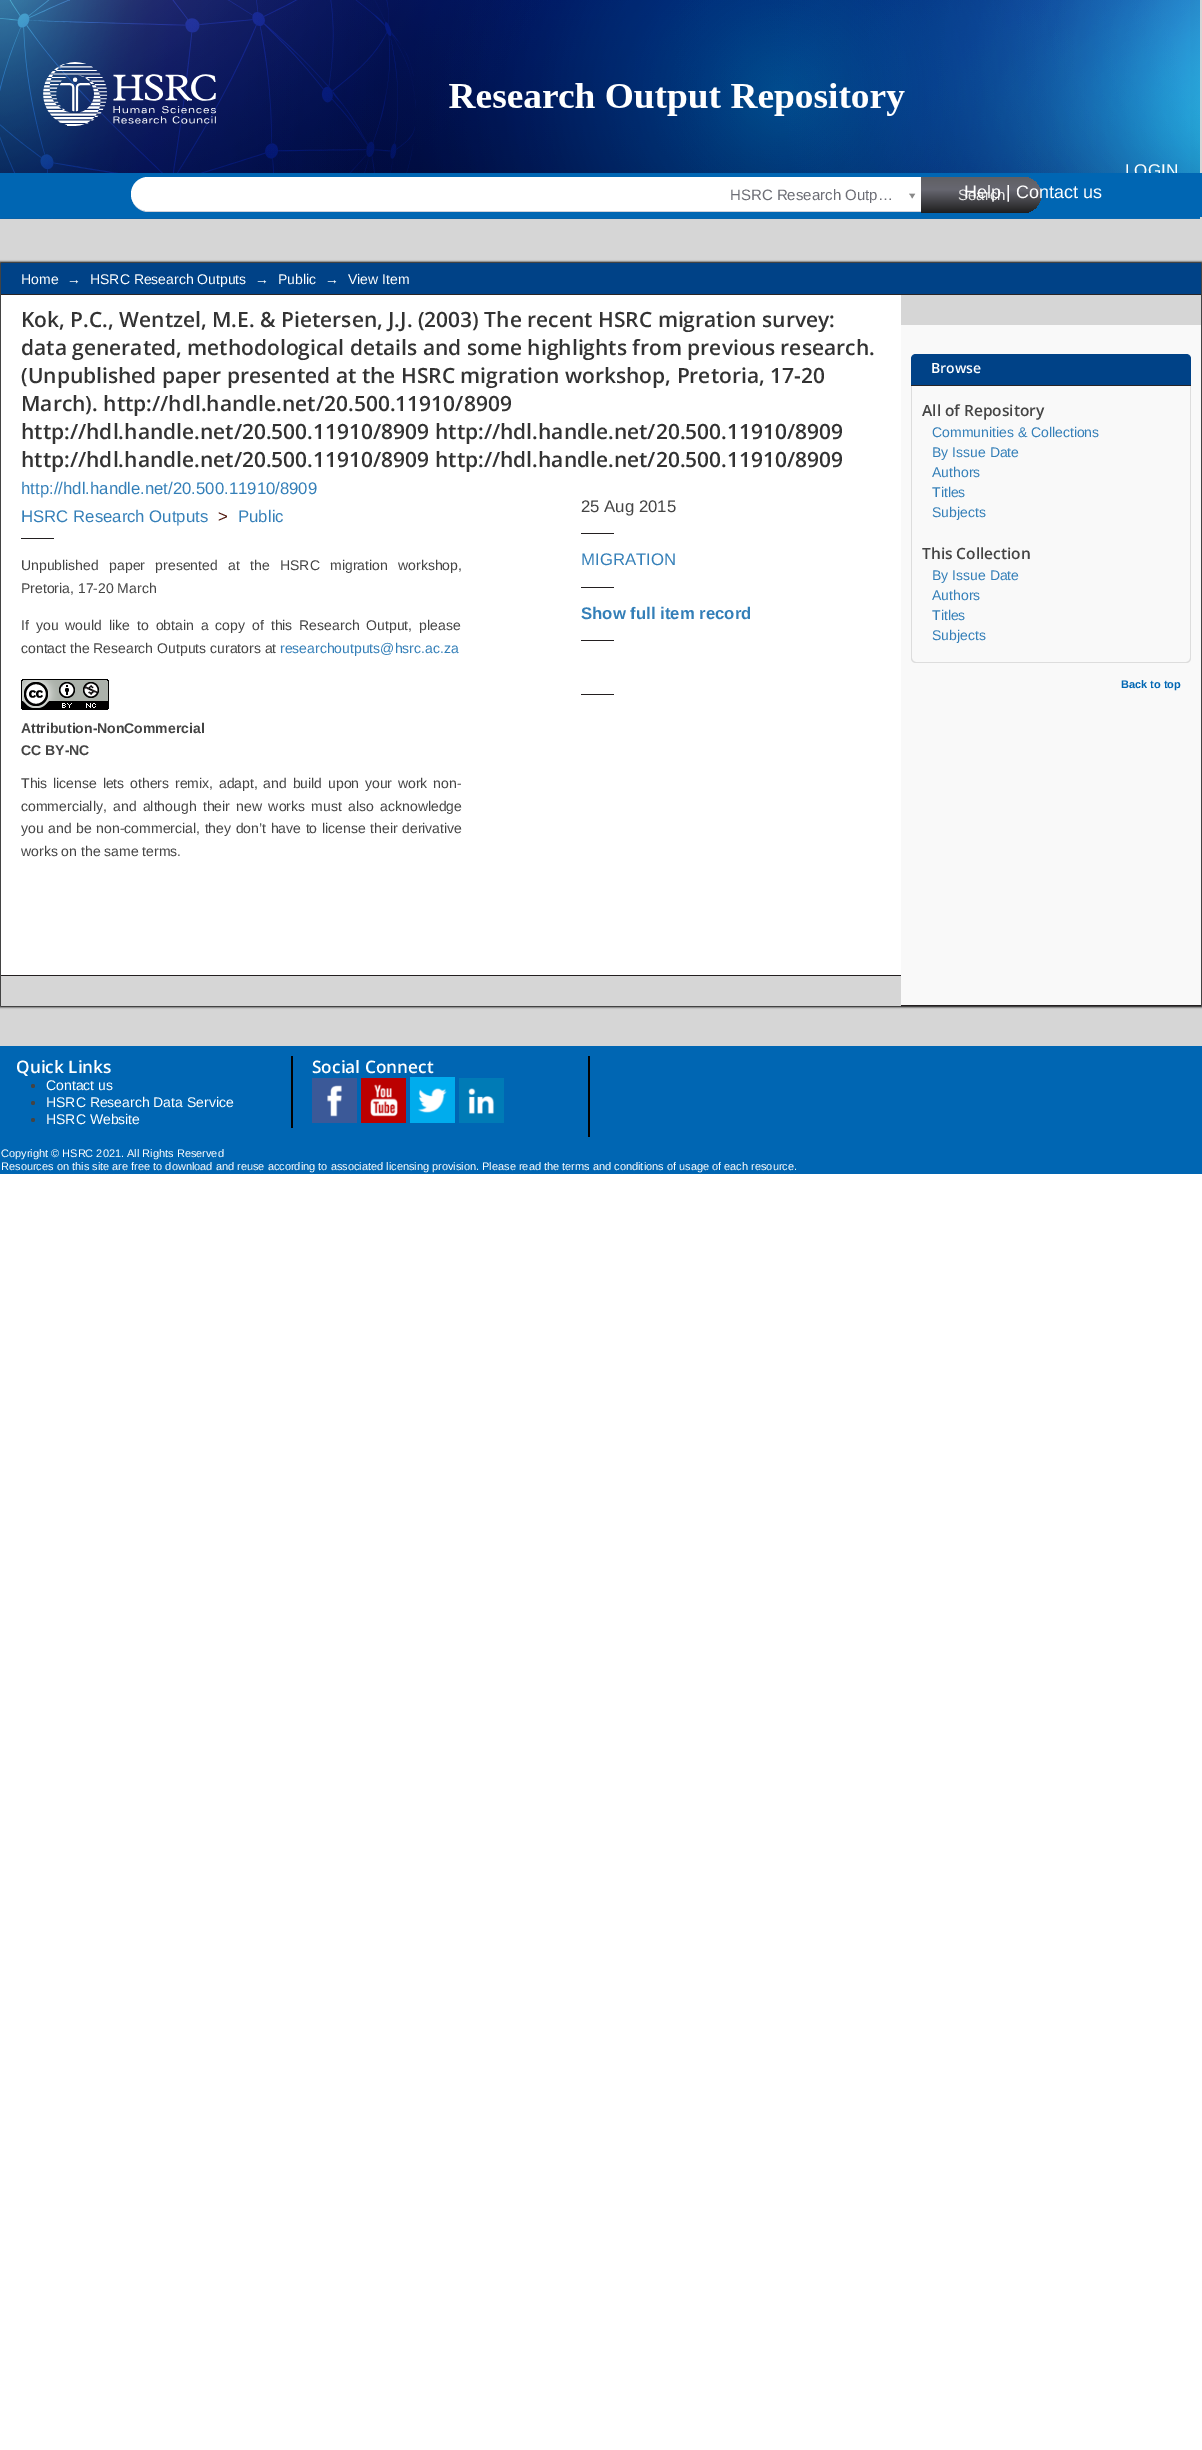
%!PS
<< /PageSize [1202 2450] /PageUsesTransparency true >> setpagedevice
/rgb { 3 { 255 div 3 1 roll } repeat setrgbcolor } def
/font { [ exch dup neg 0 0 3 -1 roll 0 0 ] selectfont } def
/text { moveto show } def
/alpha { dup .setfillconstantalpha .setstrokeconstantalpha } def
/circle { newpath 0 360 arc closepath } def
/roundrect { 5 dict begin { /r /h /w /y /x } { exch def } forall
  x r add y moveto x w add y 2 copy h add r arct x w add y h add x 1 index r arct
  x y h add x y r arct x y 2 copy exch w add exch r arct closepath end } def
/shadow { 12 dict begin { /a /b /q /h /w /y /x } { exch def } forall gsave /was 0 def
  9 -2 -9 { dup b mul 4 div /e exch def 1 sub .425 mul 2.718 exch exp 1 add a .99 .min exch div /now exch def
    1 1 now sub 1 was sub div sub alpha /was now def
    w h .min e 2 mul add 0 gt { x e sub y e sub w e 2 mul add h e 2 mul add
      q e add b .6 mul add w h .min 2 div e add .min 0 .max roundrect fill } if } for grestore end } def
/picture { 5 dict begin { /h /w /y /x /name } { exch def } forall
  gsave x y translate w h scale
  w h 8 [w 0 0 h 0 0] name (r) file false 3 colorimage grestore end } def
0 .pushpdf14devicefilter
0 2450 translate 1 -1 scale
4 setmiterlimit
255 255 255 rgb
0 0 1202 2450 rectfill
214 214 214 rgb
0 0 1202 1046 rectfill
(img_01.rgb) 0 0 1200 219 picture
gsave
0 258 moveto 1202 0 rlineto 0 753 rlineto -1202 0 rlineto closepath 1 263 moveto 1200 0 rlineto 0 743 rlineto -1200 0 rlineto closepath eoclip newpath
0 0 0 rgb
0 262 1202 745 0 1 1 shadow
grestore
0 66 135 rgb
1 263 1200 31 rectfill
41 37 38 rgb
1 294 1200 1 rectfill
255 255 255 rgb
1 295 900 680 rectfill
35 31 32 rgb
1 975 900 1 rectfill
21 538 33 1 rectfill
(img_03.rgb) 21 679 88 31 picture
581 533 33 1 rectfill
581 587 33 1 rectfill
581 640 33 1 rectfill
581 694 33 1 rectfill
249 249 249 rgb
901 325 300 680 rectfill
35 31 32 rgb
901 1005 300 1 rectfill
0 66 135 rgb
916 354 moveto 270 0 rlineto 3 0 5 2 5 5 rcurveto 0 27 rlineto -280 0 rlineto 0 -27 rlineto 0 -3 2 -5 5 -5 rcurveto closepath fill
41 37 38 rgb
911 385 280 1 rectfill
221 221 221 rgb
911 386 moveto 280 0 rlineto 0 272 rlineto 0 3 -2 5 -5 5 rcurveto -270 0 rlineto -3 0 -5 -2 -5 -5 rcurveto closepath 912 386 moveto 278 0 rlineto 0 272 rlineto 0 2 -2 4 -4 4 rcurveto -270 0 rlineto -2 0 -4 -2 -4 -4 rcurveto closepath eofill
0 102 179 rgb
0 1046 1202 128 rectfill
2 2 2 rgb
291 1056 2 72 rectfill
68 68 68 rgb
33 1086 2 circle fill
33 1103 2 circle fill
33 1120 2 circle fill
2 2 2 rgb
588 1056 2 81 rectfill
(img_04.rgb) 312 1078 45 45 picture
(img_05.rgb) 361 1078 45 45 picture
(img_06.rgb) 410 1077 45 46 picture
(img_07.rgb) 459 1078 45 45 picture
/LiberationSans-Regular 17 font
255 255 255 rgb
(LOGIN) 1125 176 text
0 102 179 rgb
0 173 1202 44 rectfill
210 210 218 rgb
131 194 moveto 0 10 8 18 17 18 rcurveto 774 0 rlineto 1 0 1 -1 1 -2 rcurveto 0 1 0 1 -1 1 rcurveto -774 0 rlineto -9 0 -17 -7 -17 -17 rcurveto closepath fill
255 255 255 rgb
148 177 moveto 774 0 rlineto 0.5 0 1 0.5 1 1 rcurveto 0 32 rlineto 0 0.5 -0.5 1 -1 1 rcurveto -774 0 rlineto -9.5 0 -17 -7.5 -17 -17 rcurveto 0 -9.5 7.5 -17 17 -17 rcurveto closepath fill
/LiberationSans-Regular 15 font
108 109 117 rgb
(HSRC Research Outp…) 730 200 text
(img_02.rgb) 909 193 7 6 picture
gsave 921 177 moveto 102 0 rlineto 10 0 18 8 18 18 rcurveto 0 10 -8 18 -18 18 rcurveto -102 0 rlineto closepath clip newpath
<< /ShadingType 2 /ColorSpace /DeviceRGB /Coords [981 177 981 213] /Extend [true true] /Function << /FunctionType 3 /Domain [0 1] /Functions [<< /FunctionType 2 /Domain [0 1] /C0 [0.376 0.376 0.392] /C1 [0.404 0.404 0.439] /N 1 >> << /FunctionType 2 /Domain [0 1] /C0 [0.404 0.404 0.439] /C1 [0.118 0.118 0.118] /N 1 >>] /Bounds [0.35] /Encode [0 1 0 1] >> >> shfill grestore
230 230 230 rgb
(Search) 958 200 text
/LiberationSans-Regular 18 font
255 255 255 rgb
(Help | Contact us) 964 198 text
/LiberationSans-Regular 14 font
(Home) 21 284 text
(→) 67 284 text
(HSRC Research Outputs) 90 284 text
(→) 255 284 text
(Public) 278 284 text
(→) 325 284 text
(View Item) 348 284 text
/OpenSans-SemiBold 21 font
51 51 51 rgb
(Kok, P.C., Wentzel, M.E. & Pietersen, J.J. \(2003\) The recent HSRC migration survey:) 21 327 text
(data generated, methodological details and some highlights from previous research.) 21 355 text
(\(Unpublished paper presented at the HSRC migration workshop, Pretoria, 17-20) 21 383 text
(March\). http://hdl.handle.net/20.500.11910/8909) 21 411 text
(http://hdl.handle.net/20.500.11910/8909 http://hdl.handle.net/20.500.11910/8909) 21 439 text
(http://hdl.handle.net/20.500.11910/8909 http://hdl.handle.net/20.500.11910/8909) 21 467 text
/LiberationSans-Regular 16.75 font
52 127 184 rgb
(http://hdl.handle.net/20.500.11910/8909) 21 494 text
(HSRC Research Outputs) 21 522 text
80 24 13 rgb
(>) 218 522 text
52 127 184 rgb
(Public) 238 522 text
/LiberationSans-Regular 14 font
68 68 68 rgb
21 570 moveto 6.5 0 32 (Unpublished paper presented at the HSRC migration workshop,) widthshow
(Pretoria, 17-20 March) 21 593 text
21 630 moveto 3.1 0 32 (If you would like to obtain a copy of this Research Output, please) widthshow
(contact the Research Outputs curators at) 21 653 text
52 127 184 rgb
(researchoutputs@hsrc.ac.za) 280 653 text
/LiberationSans-Bold 14 font
68 68 68 rgb
(Attribution-NonCommercial) 21 733 text
(CC BY-NC) 21 755 text
/LiberationSans-Regular 14 font
21 788 moveto 1.9 0 32 (This license lets others remix, adapt, and build upon your work non-) widthshow
21 811 moveto 2.5 0 32 (commercially, and although their new works must also acknowledge) widthshow
21 833 moveto 0.75 0 32 (you and be non-commercial, they don’t have to license their derivative) widthshow
(works on the same terms.) 21 856 text
/LiberationSans-Regular 16.75 font
(25 Aug 2015) 581 512 text
52 127 184 rgb
(MIGRATION) 581 565 text
/LiberationSans-Bold 16.75 font
(Show full item record) 581 619 text
/OpenSans-SemiBold 14 font
255 255 255 rgb
(Browse) 931 373 text
/OpenSans-SemiBold 15.5 font
68 68 68 rgb
(All of Repository) 922 416 text
/LiberationSans-Regular 14 font
52 127 184 rgb
(Communities & Collections) 932 437 text
(By Issue Date) 932 457 text
(Authors) 932 477 text
(Titles) 932 497 text
(Subjects) 932 517 text
/OpenSans-SemiBold 15.5 font
68 68 68 rgb
(This Collection) 922 559 text
/LiberationSans-Regular 14 font
52 127 184 rgb
(By Issue Date) 932 580 text
(Authors) 932 600 text
(Titles) 932 620 text
(Subjects) 932 640 text
/LiberationSans-Bold 11 font
0 102 179 rgb
(Back to top) 1121 688 text
/OpenSans-SemiBold 17.25 font
255 255 255 rgb
(Quick Links) 16 1073 text
/LiberationSans-Regular 14 font
(Contact us) 46 1090 text
(HSRC Research Data Service) 46 1107 text
(HSRC Website) 46 1124 text
/OpenSans-SemiBold 17.25 font
(Social Connect) 312 1073 text
/LiberationSans-Regular 11 font
(Copyright © HSRC 2021. All Rights Reserved) 1 1157 text
(Resources on this site are free to download and reuse according to associated licensing provision. Please read the terms and conditions of usage of each resource.) 1 1170 text
.poppdf14devicefilter showpage
